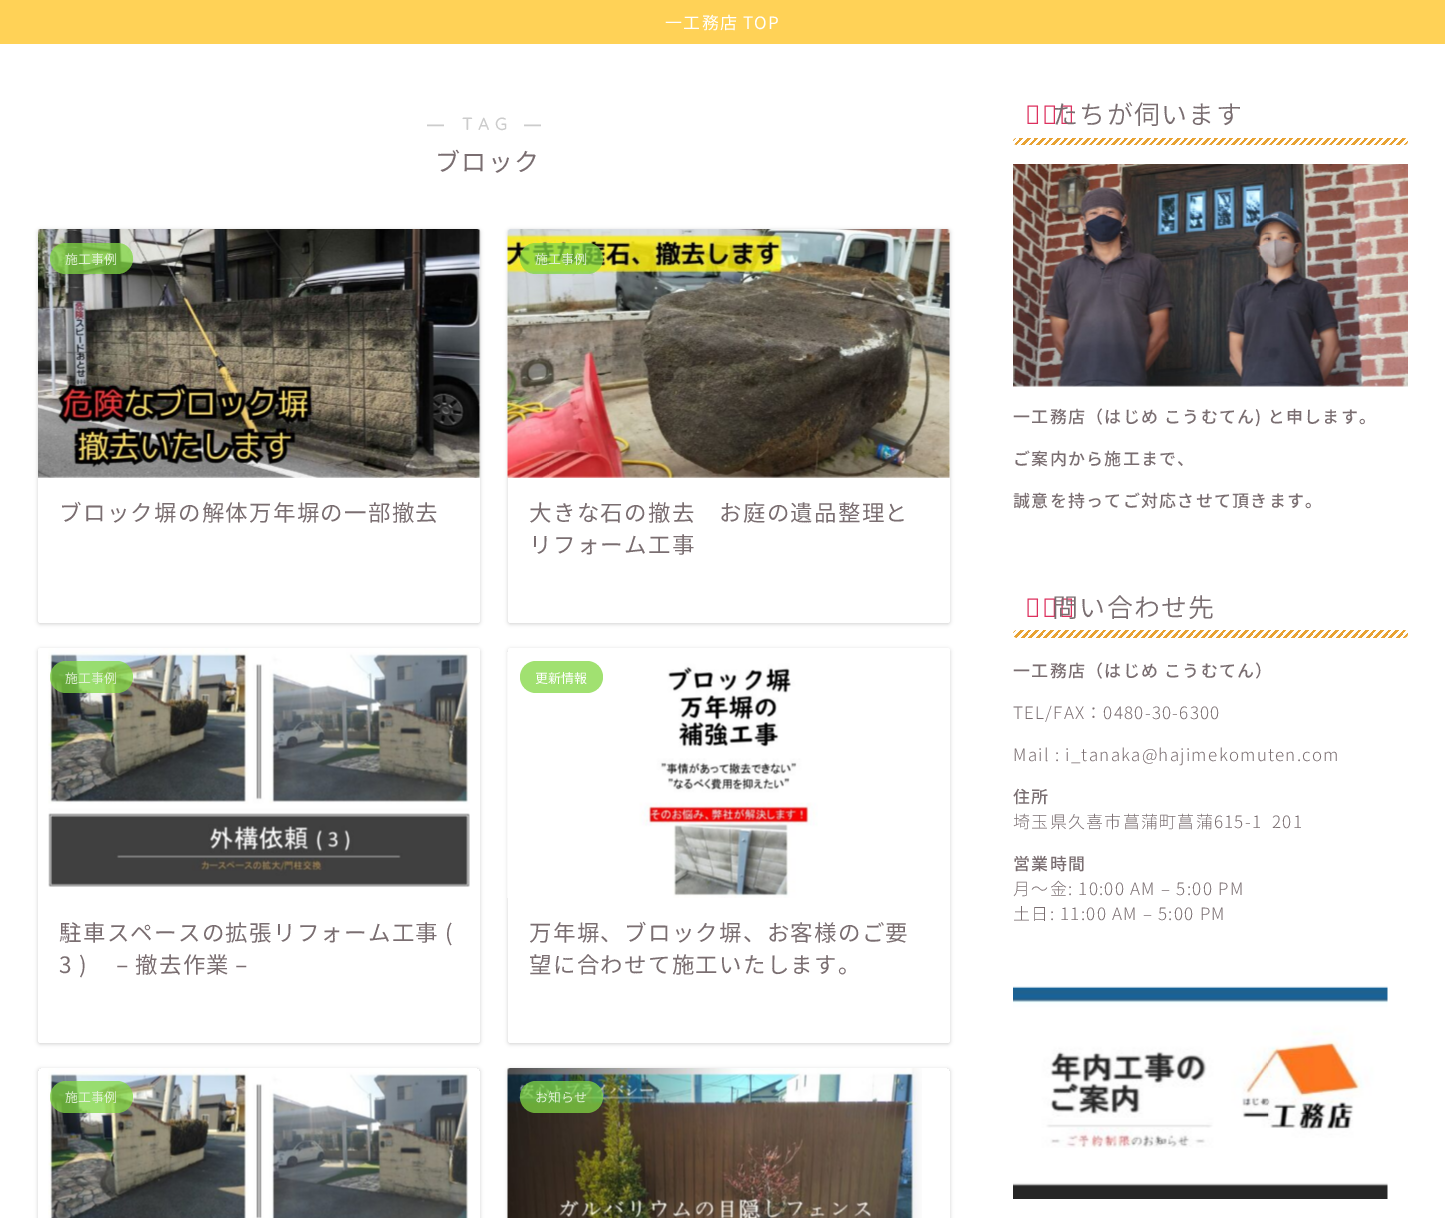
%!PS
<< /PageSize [1445 1218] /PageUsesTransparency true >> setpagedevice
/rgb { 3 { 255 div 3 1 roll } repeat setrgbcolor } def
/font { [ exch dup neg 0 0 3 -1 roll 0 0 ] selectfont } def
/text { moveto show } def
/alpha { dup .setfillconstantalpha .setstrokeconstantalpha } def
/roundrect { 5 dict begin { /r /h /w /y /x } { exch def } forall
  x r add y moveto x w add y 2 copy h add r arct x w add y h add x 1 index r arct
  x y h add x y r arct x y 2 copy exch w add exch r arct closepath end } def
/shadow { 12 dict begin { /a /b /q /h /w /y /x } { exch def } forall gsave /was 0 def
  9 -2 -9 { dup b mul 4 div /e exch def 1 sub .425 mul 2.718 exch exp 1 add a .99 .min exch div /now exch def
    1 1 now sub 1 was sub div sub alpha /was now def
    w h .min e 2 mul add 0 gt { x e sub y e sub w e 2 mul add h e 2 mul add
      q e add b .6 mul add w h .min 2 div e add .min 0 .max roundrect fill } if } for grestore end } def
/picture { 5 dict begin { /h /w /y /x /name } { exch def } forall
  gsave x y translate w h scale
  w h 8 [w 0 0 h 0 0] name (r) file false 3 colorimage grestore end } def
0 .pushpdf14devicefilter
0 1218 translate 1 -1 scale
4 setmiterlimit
255 255 255 rgb
0 0 1445 1218 rectfill
255 210 87 rgb
0 0 1445 44 rectfill
0 0 0 rgb
38 230 442 394 2.5 2 0.18 shadow
255 255 255 rgb
38 229 442 394 2.5 roundrect fill
(img_01.rgb) 38 229 443 249 picture
0.75 alpha
129 215 66 rgb
50 243 83 31 15.5 roundrect fill
1 alpha
0 0 0 rgb
508 230 442 394 2.5 2 0.18 shadow
255 255 255 rgb
508 229 442 394 2.5 roundrect fill
(img_02.rgb) 507 229 443 249 picture
0.75 alpha
129 215 66 rgb
520 243 83 31 15.5 roundrect fill
1 alpha
0 0 0 rgb
38 649 442 395 2.5 2 0.18 shadow
255 255 255 rgb
38 648 442 395 2.5 roundrect fill
(img_03.rgb) 48 648 422 239 picture
0.75 alpha
129 215 66 rgb
50 661 83 32 16 roundrect fill
1 alpha
0 0 0 rgb
508 649 442 395 2.5 2 0.18 shadow
255 255 255 rgb
508 648 442 395 2.5 roundrect fill
(img_04.rgb) 507 652 311 246 picture
161 225 113 rgb
520 661 83 32 16 roundrect fill
gsave
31 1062 moveto 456 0 rlineto 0 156 rlineto -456 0 rlineto closepath 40.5 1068 moveto 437 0 rlineto 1.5 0 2.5 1 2.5 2.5 rcurveto 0 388 rlineto 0 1.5 -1 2.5 -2.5 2.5 rcurveto -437 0 rlineto -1.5 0 -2.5 -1 -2.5 -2.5 rcurveto 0 -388 rlineto 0 -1.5 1 -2.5 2.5 -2.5 rcurveto closepath eoclip newpath
0 0 0 rgb
38 1069 442 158 2.5 2 0.18 shadow
grestore
(img_05.rgb) 48 1068 421 150 picture
0.75 alpha
129 215 66 rgb
50 1081 83 32 16 roundrect fill
gsave
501 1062 moveto 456 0 rlineto 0 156 rlineto -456 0 rlineto closepath 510.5 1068 moveto 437 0 rlineto 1.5 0 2.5 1 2.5 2.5 rcurveto 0 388 rlineto 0 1.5 -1 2.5 -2.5 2.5 rcurveto -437 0 rlineto -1.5 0 -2.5 -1 -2.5 -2.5 rcurveto 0 -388 rlineto 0 -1.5 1 -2.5 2.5 -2.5 rcurveto closepath eoclip newpath
1 alpha
0 0 0 rgb
508 1069 442 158 2.5 2 0.18 shadow
grestore
1 alpha
(img_06.rgb) 507 1068 415 150 picture
0.75 alpha
520 1081 83 32 16 roundrect fill
1 alpha
(img_07.rgb) 1013 138 395 7 picture
(img_08.rgb) 1013 164 395 223 picture
(img_09.rgb) 1013 630 395 8 picture
(img_10.rgb) 1013 986 375 213 picture
/NotoSansJP-Regular 17 font
255 255 255 rgb
665 29 moveto 1.25 0 (一工務店 TOP) ashow
/LiberationSans-Bold 17 font
204 204 204 rgb
427 130 moveto 6 0 (―) ashow
/Quicksand-Bold 17 font
462 130 moveto 6 0 (TAG) ashow
/LiberationSans-Bold 17 font
524 130 moveto 6 0 (―) ashow
/NotoSansJP-Regular 25 font
122 110 113 rgb
435 171 moveto 1.25 0 (ブロック) ashow
/NotoSansJP-Regular 13 font
223 239 211 rgb
(施工事例) 65 264 text
/NotoSansJP-Regular 22.5 font
122 110 113 rgb
59 521 moveto 1.25 0 (ブロック塀の解体万年塀の一部撤去) ashow
/NotoSansJP-Regular 13 font
223 239 211 rgb
(施工事例) 535 264 text
/NotoSansJP-Regular 22.5 font
122 110 113 rgb
529 521 moveto 1.25 0 (大きな石の撤去　お庭の遺品整理と) ashow
529 553 moveto 1.25 0 (リフォーム工事) ashow
/NotoSansJP-Regular 13 font
223 239 211 rgb
(施工事例) 65 683 text
/NotoSansJP-Regular 22.5 font
122 110 113 rgb
59 941 moveto 1.25 0 (駐車スペースの拡張リフォーム工事 \() ashow
59 973 moveto 1.25 0 (3 \)) ashow
/WenQuanYiZenHei-Medium 22.5 font
111 973 moveto 1.25 0 (－) ashow
/NotoSansJP-Regular 22.5 font
135 973 moveto 1.25 0 (撤去作業) ashow
/WenQuanYiZenHei-Medium 22.5 font
230 973 moveto 1.25 0 (－) ashow
/NotoSansJP-Regular 13 font
255 255 255 rgb
(更新情報) 535 683 text
/NotoSansJP-Regular 22.5 font
122 110 113 rgb
529 941 moveto 1.25 0 (万年塀、ブロック塀、お客様のご要) ashow
529 973 moveto 1.25 0 (望に合わせて施工いたします。) ashow
/NotoSansJP-Regular 13 font
223 239 211 rgb
(施工事例) 65 1102 text
(お知らせ) 535 1102 text
/NotoSans-Light 26 font
221 48 94 rgb
1025 124 moveto 1.25 0 (私) ashow
/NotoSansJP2-Light 26 font
122 110 113 rgb
1052 124 moveto 1.25 0 (たちが伺います) ashow
/NotoSansJP-Medium 17 font
1013 423 moveto 1.25 0 (一工務店（はじめ こうむてん\) と申します。) ashow
1013 465 moveto 1.25 0 (ご案内から施工まで、) ashow
1013 507 moveto 1.25 0 (誠意を持ってご対応させて頂きます。) ashow
/NotoSans-Light 26 font
221 48 94 rgb
1025 617 moveto 1.25 0 (お) ashow
/NotoSansJP2-Light 26 font
122 110 113 rgb
1052 617 moveto 1.25 0 (問い合わせ先) ashow
/NotoSansJP-Medium 17 font
1013 677 moveto 1.25 0 (一工務店（はじめ こうむてん）) ashow
/NotoSansJP-Light 17 font
1013 719 moveto 1.25 0 (TEL/FAX：0480-30-6300) ashow
1013 761 moveto 1.25 0 (Mail : i_tanaka@hajimekomuten.com) ashow
/NotoSansJP-Medium 17 font
1013 803 moveto 1.25 0 (住所) ashow
/NotoSansJP-Light 17 font
1013 828 moveto 1.25 0 (埼玉県久喜市菖蒲町菖蒲615-1  201) ashow
/NotoSansJP-Medium 17 font
1013 870 moveto 1.25 0 (営業時間) ashow
/NotoSansJP-Light 17 font
1013 895 moveto 1.25 0 (月〜金: 10:00 AM – 5:00 PM) ashow
1013 920 moveto 1.25 0 (土日: 11:00 AM – 5:00 PM) ashow
.poppdf14devicefilter showpage
